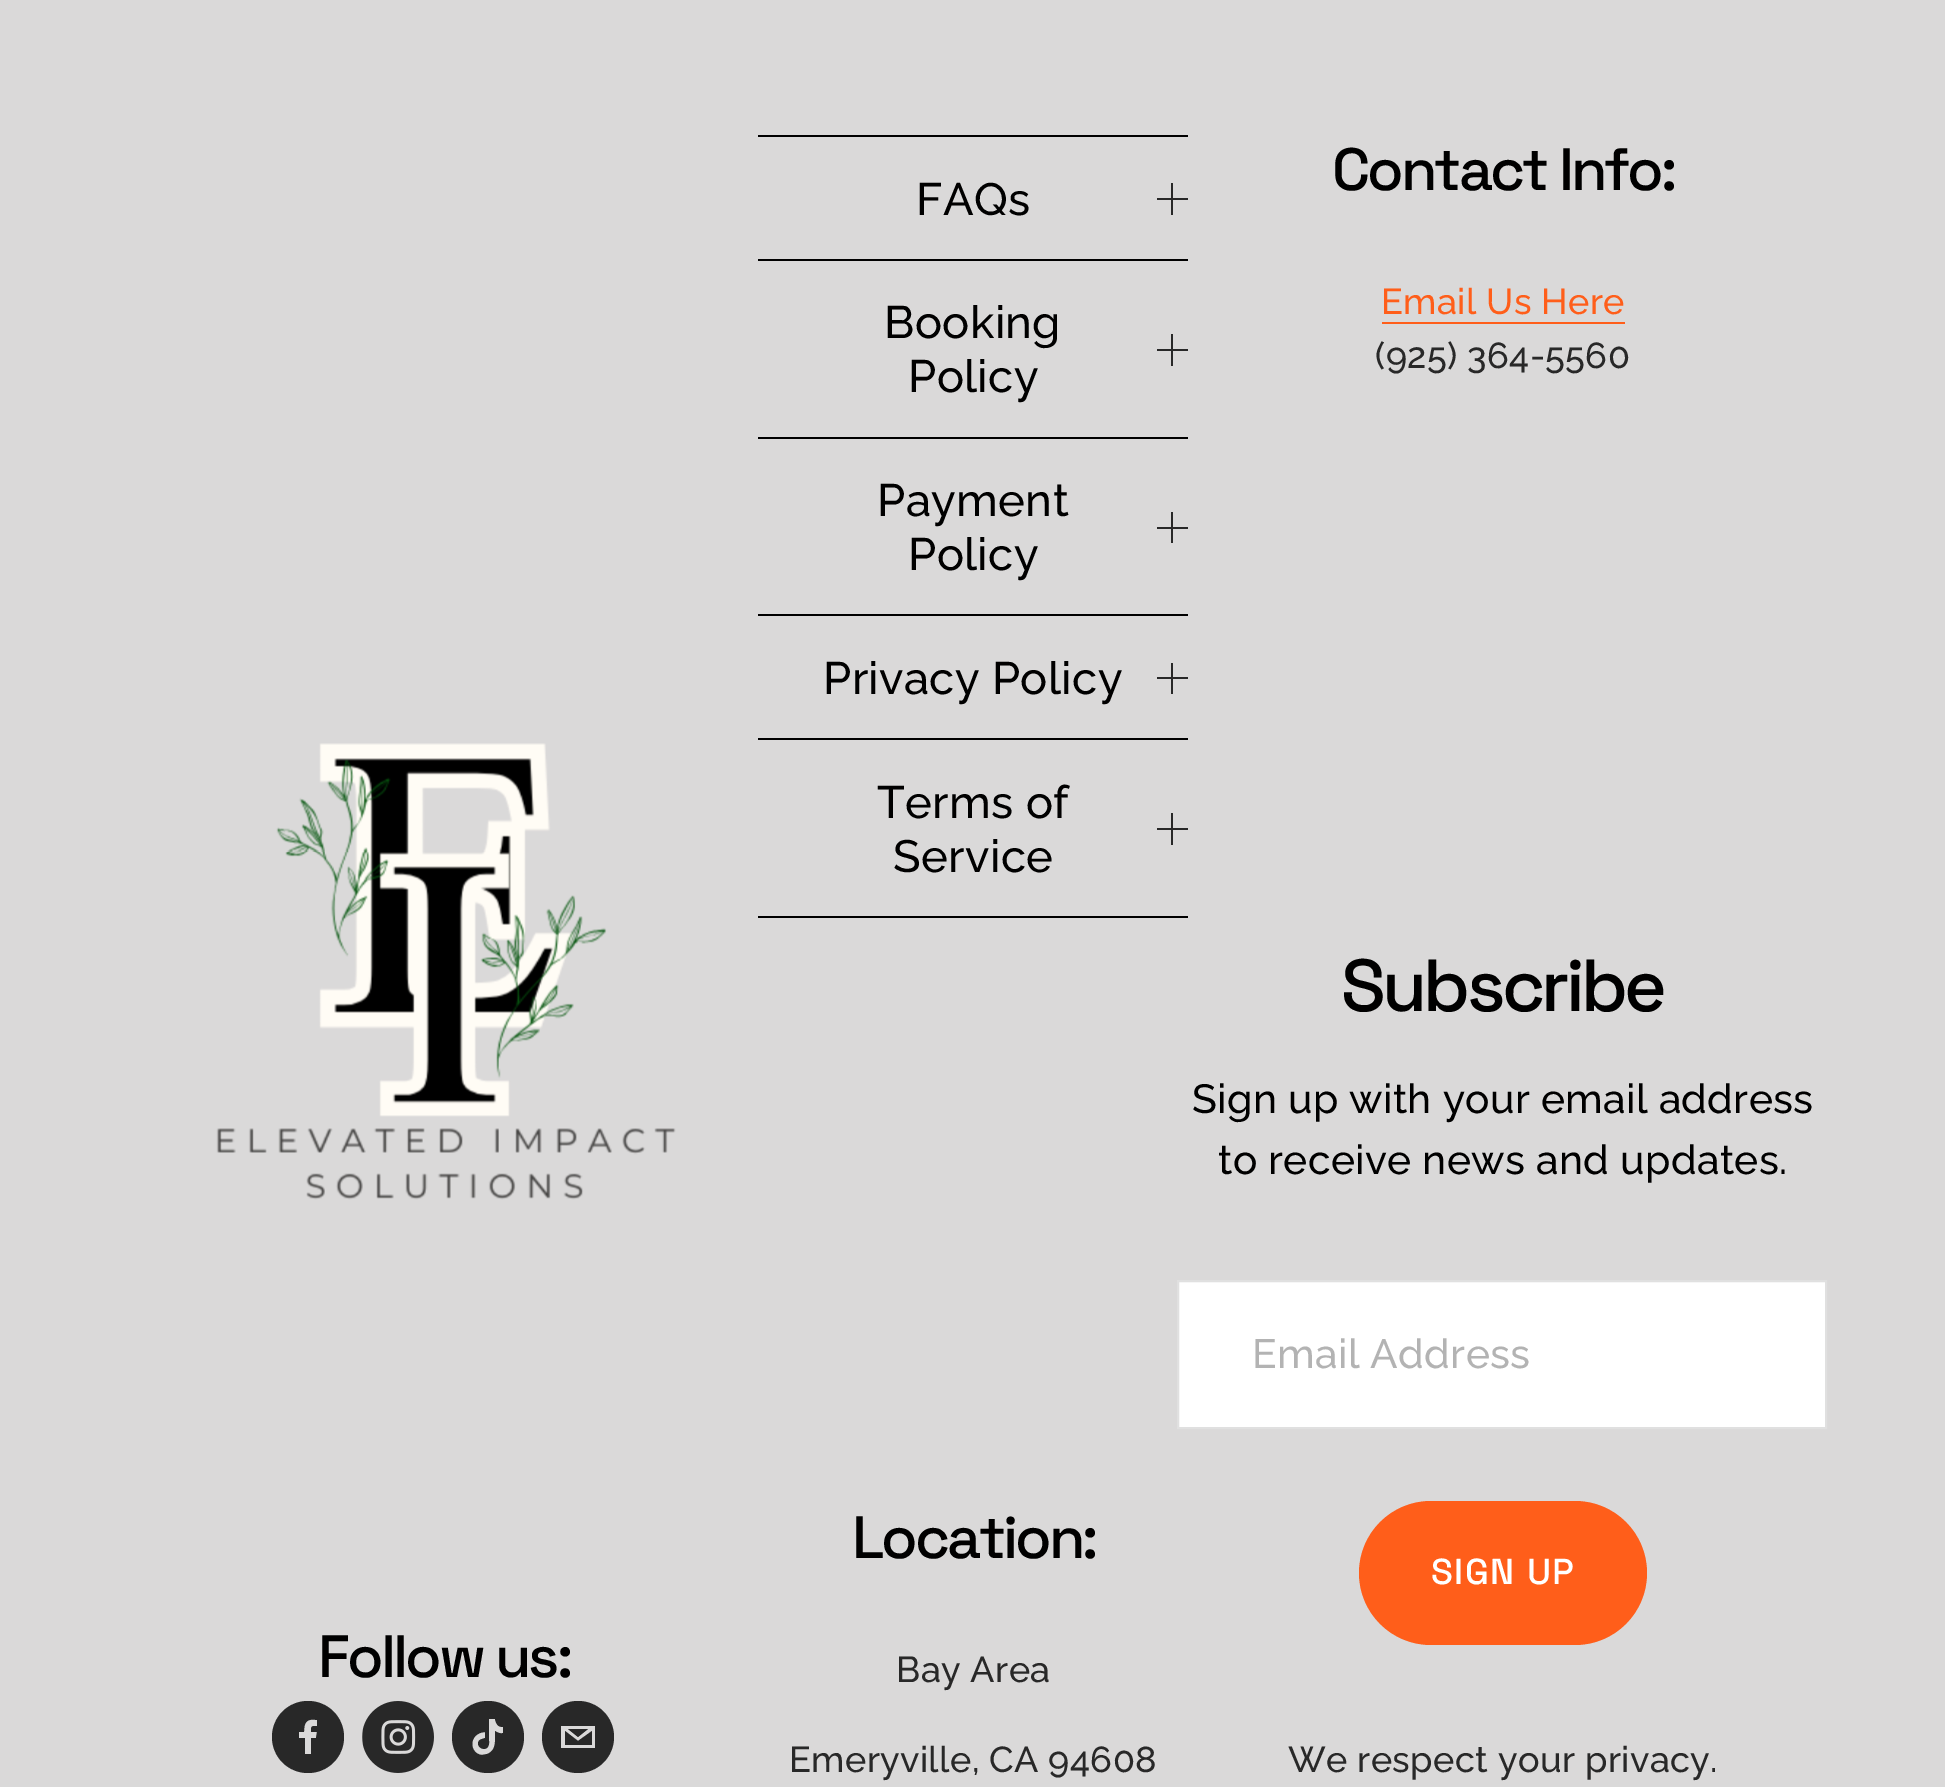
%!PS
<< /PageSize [1945 1787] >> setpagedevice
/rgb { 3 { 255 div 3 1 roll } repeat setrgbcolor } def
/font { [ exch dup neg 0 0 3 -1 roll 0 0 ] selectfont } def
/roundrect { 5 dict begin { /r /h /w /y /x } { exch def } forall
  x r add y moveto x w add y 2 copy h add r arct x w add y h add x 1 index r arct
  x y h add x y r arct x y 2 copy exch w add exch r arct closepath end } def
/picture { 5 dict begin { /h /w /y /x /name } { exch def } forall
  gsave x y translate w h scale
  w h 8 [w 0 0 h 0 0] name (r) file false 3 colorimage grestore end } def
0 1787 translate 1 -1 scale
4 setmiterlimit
218 217 217 rgb
0 0 1945 1787 rectfill
0 0 0 rgb
758 135 430 2 rectfill
40 40 40 rgb
1157 198 31 2 rectfill
1171 183 2 32 rectfill
0 0 0 rgb
758 259 430 2 rectfill
40 40 40 rgb
1157 349 31 2 rectfill
1171 334 2 32 rectfill
0 0 0 rgb
758 437 430 2 rectfill
40 40 40 rgb
1157 527 31 2 rectfill
1171 512 2 31 rectfill
0 0 0 rgb
758 614 430 2 rectfill
40 40 40 rgb
1157 677 31 2 rectfill
1171 663 2 31 rectfill
0 0 0 rgb
758 738 430 2 rectfill
40 40 40 rgb
1157 828 31 2 rectfill
1171 813 2 32 rectfill
0 0 0 rgb
758 916 430 2 rectfill
255 94 26 rgb
1382 322 243 2 rectfill
(img_01.rgb) 216 743 460 457 picture
255 255 255 rgb
1178 1281 moveto 648 0 rlineto 0 147 rlineto -648 0 rlineto closepath gsave fill grestore
224 224 224 rgb
2 setlinewidth
stroke
255 94 26 rgb
1359 1501 288 144 72 roundrect fill
40 40 40 rgb
308 1701 moveto -20 0 -36 16 -36 36 rcurveto 0 20 16 36 36 36 rcurveto 20 0 36 -16 36 -36 rcurveto 0 -20 -16 -36 -36 -36 rcurveto closepath 317 1726 moveto 0 -6 rlineto -11 -2 -13 3 -13 12 rcurveto -5 0 rlineto 0 6 rlineto 6 0 rlineto 0 16 rlineto 6 0 rlineto 0 -16 rlineto 5 0 rlineto 1 -6 rlineto -6 0 rlineto 0 -6 0 -6 6 -6 rcurveto closepath eofill
(img_02.rgb) 362 1701 72 72 picture
488 1701 moveto -20 0 -36 16 -36 36 rcurveto 0 20 16 36 36 36 rcurveto 20 0 36 -16 36 -36 rcurveto 0 -20 -16 -36 -36 -36 rcurveto closepath 503 1727 moveto 0 6 rlineto -2 1 -5 0 -8 -2 rcurveto 0 8 2 20 -8 23 rcurveto -5 1 rlineto -13 -1 -14 -22 3 -23 rcurveto 0 6 rlineto -3 1 rlineto -3 1 -4 2 -4 5 rcurveto 1 6 12 8 11 -3 rcurveto 0 -22 rlineto 6 0 rlineto 1 5 3 8 8 8 rcurveto closepath eofill
578 1701 moveto -20 0 -36 16 -36 36 rcurveto 0 20 16 36 36 36 rcurveto 20 0 36 -16 36 -36 rcurveto 0 -20 -16 -36 -36 -36 rcurveto closepath 588 1729 moveto -10 8 rlineto -10 -8 rlineto closepath 595 1748 moveto 0 -22 rlineto -34 0 rlineto 0 22 rlineto closepath 592 1731 moveto 0 14 rlineto -27 0 rlineto 0 -14 rlineto 13 10 rlineto closepath eofill
/Raleway-Medium 45.25 font
0 0 0 rgb
916 215 moveto 0.4 0 (FAQs) ashow
884 338 moveto 0.4 0 (Booking) ashow
908 392 moveto 0.4 0 (Policy) ashow
877 516 moveto 0.4 0 (Payment) ashow
908 570 moveto 0.4 0 (Policy) ashow
823 694 moveto 0.4 0 (Privacy Policy) ashow
877 818 moveto 0.4 0 (Terms of) ashow
893 872 moveto 0.4 0 (Service) ashow
/SpaceGrotesk-Medium 59.5 font
1332 190 moveto -3 0 (Contact Info:) ashow
/Raleway-Medium 36 font
255 94 26 rgb
1381 314 moveto 0.4 0 (Email Us Here) ashow
40 40 40 rgb
1375 368 moveto 0.4 0 (\(925\) 364-5560) ashow
/SpaceGrotesk-Medium 59.5 font
0 0 0 rgb
852 1558 moveto -3 0 (Location:) ashow
/Raleway-Medium 36 font
40 40 40 rgb
896 1682 moveto 0.4 0 (Bay Area) ashow
789 1772 moveto 0.4 0 (Emeryville, CA 94608) ashow
/SpaceGrotesk-Medium 73.5 font
0 0 0 rgb
1341 1011 moveto -3.75 0 (Subscribe) ashow
/Raleway-Medium 40.7 font
1192 1113 moveto 0.4 0 (Sign up with your email address) ashow
1218 1174 moveto 0.4 0 (to receive news and updates.) ashow
179 179 179 rgb
1252 1368 moveto 0.4 0 (Email Address) ashow
/SpaceGrotesk-Medium 36 font
255 255 255 rgb
1431 1584 moveto 1.5 0 (SIGN UP) ashow
/Raleway-Medium 36 font
40 40 40 rgb
1288 1772 moveto 0.4 0 (We respect your privacy.) ashow
/SpaceGrotesk-Medium 59.5 font
0 0 0 rgb
318 1677 moveto -3 0 (Follow us:) ashow
showpage
